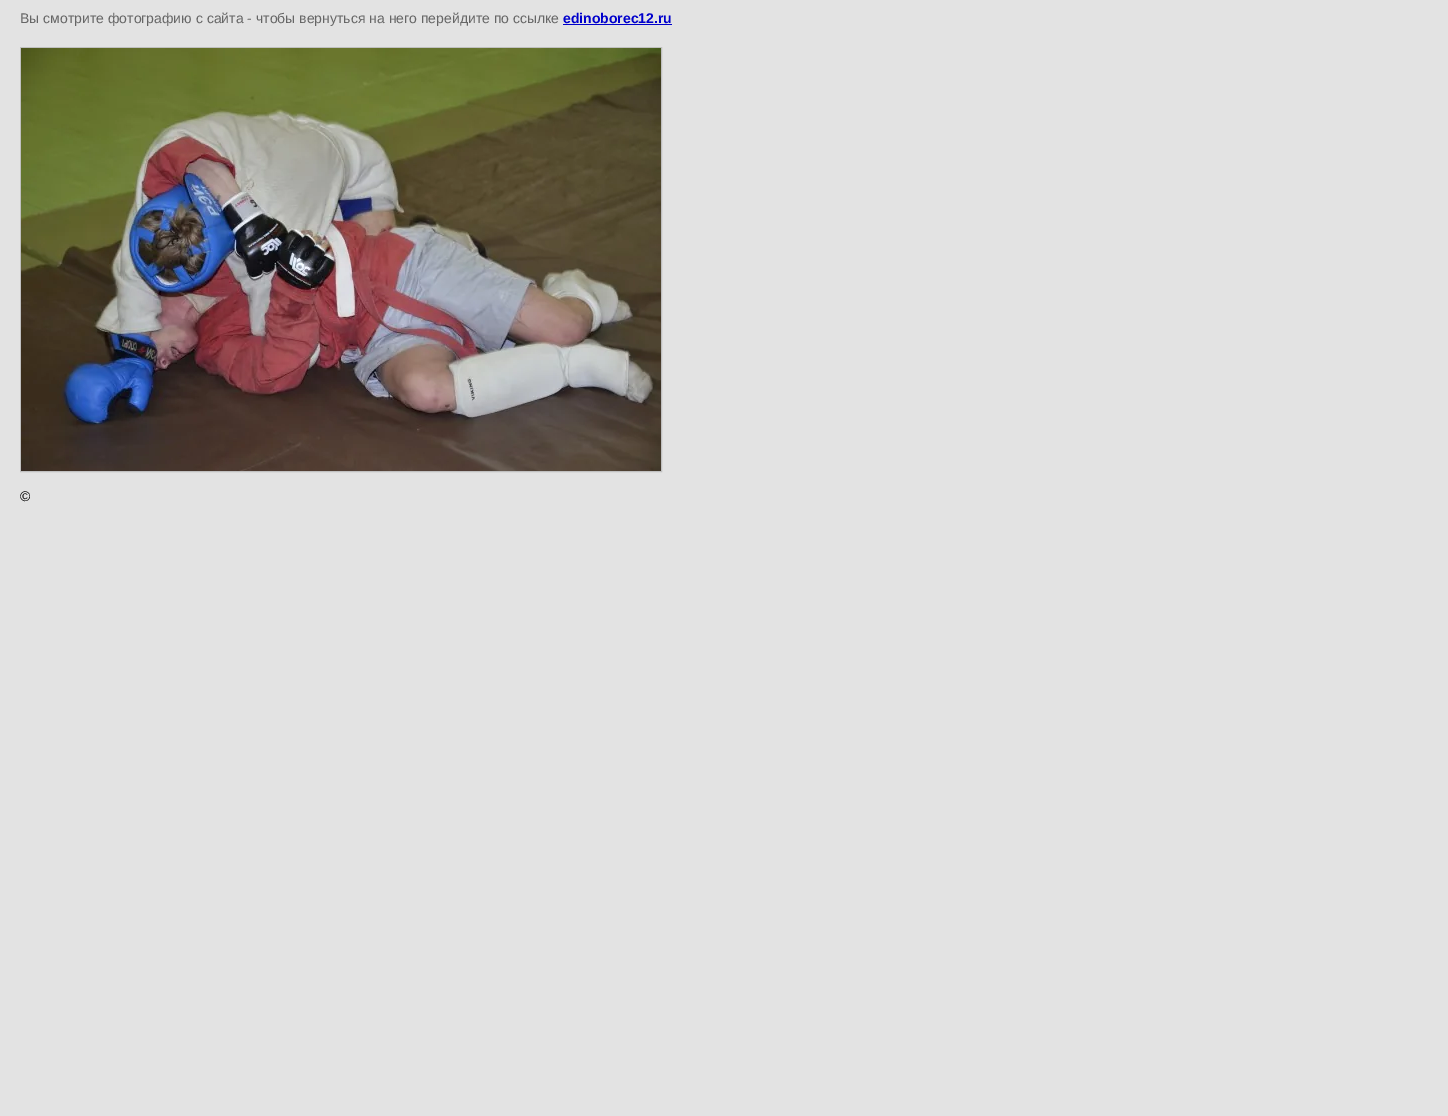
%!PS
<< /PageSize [1448 1116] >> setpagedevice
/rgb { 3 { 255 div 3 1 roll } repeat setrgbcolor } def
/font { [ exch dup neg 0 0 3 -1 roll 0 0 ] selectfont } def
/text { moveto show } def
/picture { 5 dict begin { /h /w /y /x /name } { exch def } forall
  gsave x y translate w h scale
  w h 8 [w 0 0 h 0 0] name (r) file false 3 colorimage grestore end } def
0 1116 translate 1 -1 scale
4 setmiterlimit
227 227 227 rgb
0 0 1448 1116 rectfill
0 0 204 rgb
563 24 109 1 rectfill
192 192 192 rgb
20.5 47.5 641 424 rectstroke
(img_01.rgb) 21 48 640 423 picture
/LiberationSans-Regular 14 font
102 102 102 rgb
(Вы смотрите фотографию с сайта - чтобы вернуться на него перейдите по ссылке) 20 23 text
/LiberationSans-Bold 14 font
0 0 204 rgb
(edinoborec12.ru) 563 23 text
/LiberationSans-Regular 14 font
0 0 0 rgb
(©) 20 501 text
showpage
